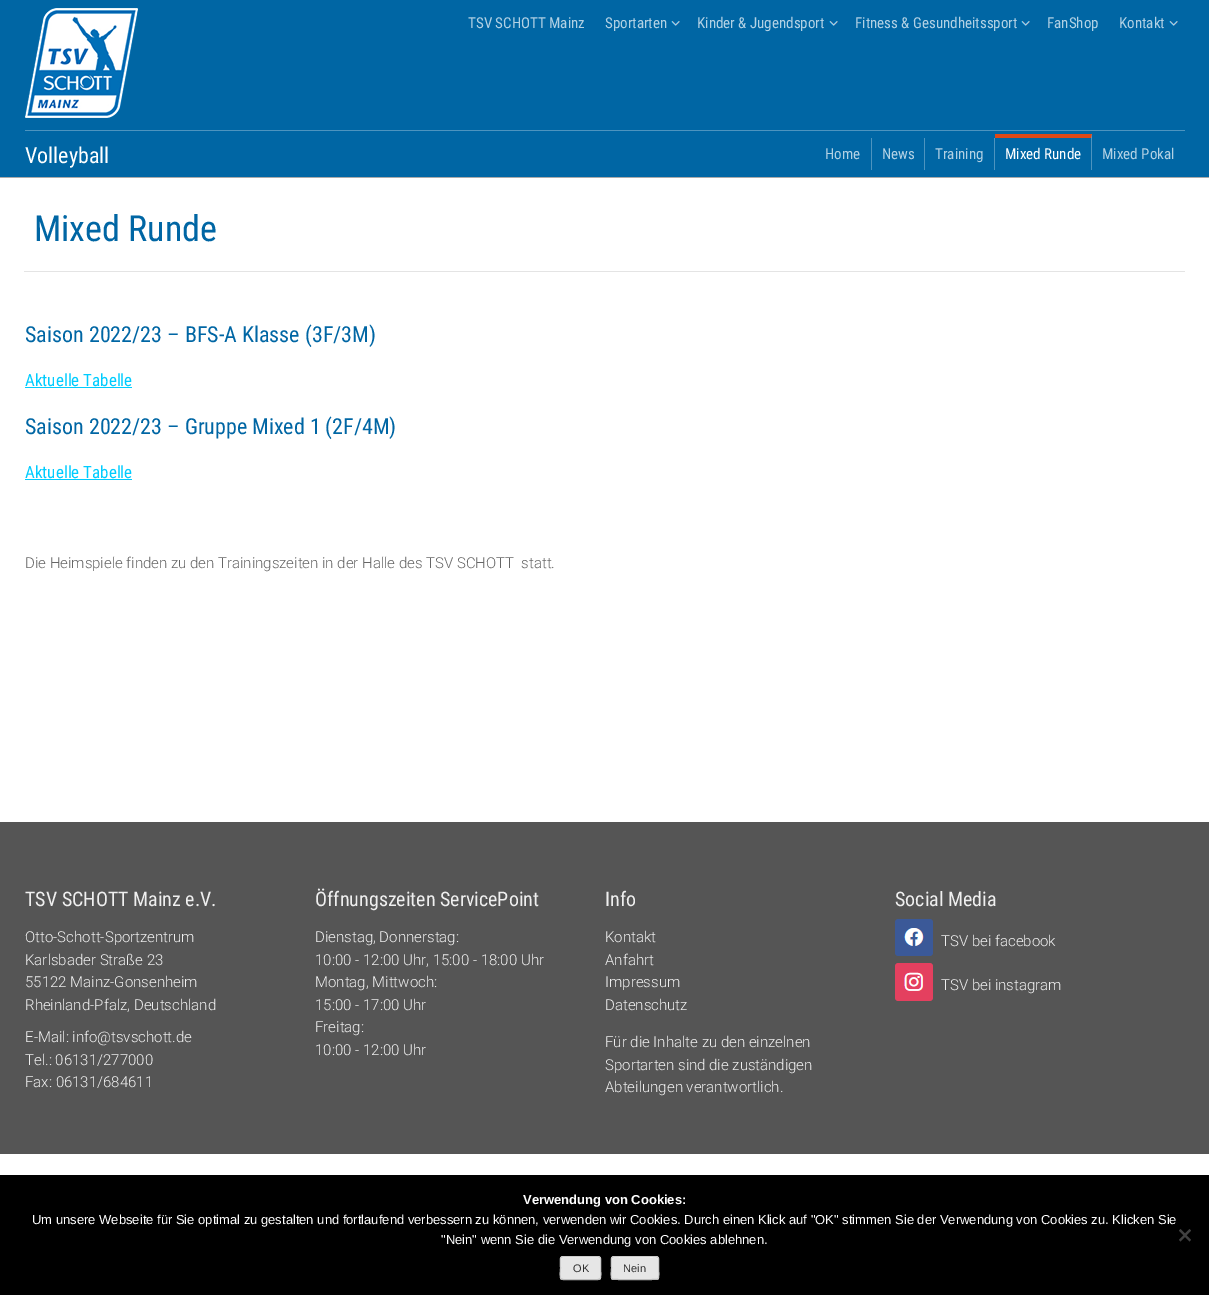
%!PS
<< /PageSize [1209 1295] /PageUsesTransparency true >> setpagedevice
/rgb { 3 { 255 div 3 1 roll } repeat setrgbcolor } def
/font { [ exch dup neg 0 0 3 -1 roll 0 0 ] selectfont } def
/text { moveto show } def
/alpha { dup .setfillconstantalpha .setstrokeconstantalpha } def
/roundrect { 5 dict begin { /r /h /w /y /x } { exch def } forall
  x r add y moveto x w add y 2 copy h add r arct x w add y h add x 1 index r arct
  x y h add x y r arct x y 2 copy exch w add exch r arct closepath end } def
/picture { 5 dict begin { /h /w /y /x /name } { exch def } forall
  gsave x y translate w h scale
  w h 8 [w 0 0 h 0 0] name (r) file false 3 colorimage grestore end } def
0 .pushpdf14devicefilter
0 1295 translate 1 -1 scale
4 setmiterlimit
255 255 255 rgb
0 0 1209 1295 rectfill
0 102 164 rgb
0 0 1209 177 rectfill
170 170 170 rgb
0 177 1209 1 rectfill
(img_01.rgb) 25 8 113 110 picture
(img_02.rgb) 671 21 9 5 picture
(img_02.rgb) 829 21 9 5 picture
(img_02.rgb) 1021 21 9 5 picture
(img_02.rgb) 1169 21 9 5 picture
77 148 191 rgb
25 130 1160 1 rectfill
871 138 1 32 rectfill
924 138 1 32 rectfill
994 138 1 32 rectfill
222 72 22 rgb
995 134 moveto 97 0 rlineto -1 4 rlineto -96 0 rlineto closepath fill
0.3 alpha
255 255 255 rgb
1092 134 moveto 0 36 rlineto -1 0 rlineto 0 -32 rlineto closepath fill
1 alpha
228 228 228 rgb
24 271 1161 1 rectfill
0 204 255 rgb
25 387 107 1 rectfill
25 479 107 1 rectfill
85 85 85 rgb
0 822 1209 332 rectfill
(img_03.rgb) 895 919 38 37 picture
(img_04.rgb) 895 963 38 38 picture
0 0 0 rgb
0 1175 1209 120 rectfill
64 64 64 rgb
1189.5 1229 moveto 1.5 1.5 rlineto -10.5 11 rlineto -1.5 -1.5 rlineto closepath fill
1179 1230.5 moveto 1.5 -1.5 rlineto 10.5 11 rlineto -1.5 1.5 rlineto closepath fill
230 230 230 rgb
560 1256 41 24 3 roundrect fill
243 243 243 rgb
563 1258 moveto 35 0 rlineto 1 0 2 1 2 2 rcurveto 0 -4.5 -4 -3 -8 -3 rcurveto -23 0 rlineto -4 0 -8 -1.5 -8 3 rcurveto 0 -1 1 -2 2 -2 rcurveto closepath fill
187 187 187 rgb
600 1279 moveto -2 0.5 rlineto -35 0 rlineto -2 -0.5 rlineto stroke
204 204 204 rgb
561 1279 moveto -1.5 -2 -0.5 -9 -0.5 -11 rcurveto 0 -11.5 -2.5 -11.5 8.5 -11.5 rcurveto 23 0 rlineto 11 0 8.5 0 8.5 11.5 rcurveto 0 2 1 9 -0.5 11 rcurveto stroke
230 230 230 rgb
611 1256 48 24 3 roundrect fill
243 243 243 rgb
614 1258 moveto 42 0 rlineto 1 0 2 1 2 2 rcurveto 0 -5 -5 -3 -9 -3 rcurveto -28 0 rlineto -4 0 -9 -2 -9 3 rcurveto 0 -1 1 -2 2 -2 rcurveto closepath fill
187 187 187 rgb
658 1279 moveto -1.5 1 -44.5 1 -46 0 rcurveto stroke
204 204 204 rgb
612 1279 moveto -1.5 -2 -0.5 -9 -0.5 -11 rcurveto 0 -12 -2.5 -11.5 9.5 -11.5 rcurveto 28 0 rlineto 12 0 9.5 -0.5 9.5 11.5 rcurveto 0 2 1 9 -0.5 11 rcurveto stroke
/RobotoCondensed-Regular 15 font
178 209 228 rgb
(TSV SCHOTT Mainz) 468 28 text
(Sportarten) 605 28 text
(Kinder & Jugendsport) 697 28 text
(Fitness & Gesundheitssport) 855 28 text
(FanShop) 1047 28 text
(Kontakt) 1119 28 text
/RobotoCondensed-Regular 22 font
255 255 255 rgb
(Volleyball) 25 163 text
/RobotoCondensed-Regular 15 font
178 209 228 rgb
(Home) 825 159 text
(News) 882 159 text
(Training) 935 159 text
255 255 255 rgb
(Mixed Runde) 1005 159 text
178 209 228 rgb
(Mixed Pokal) 1102 159 text
/RobotoCondensed-Regular 36 font
0 102 164 rgb
(Mixed Runde) 34 241 text
/RobotoCondensed-Regular 22 font
(Saison 2022/23 – BFS-A Klasse \(3F/3M\)) 25 342 text
/RobotoCondensed-Regular 17 font
0 204 255 rgb
(Aktuelle Tabelle) 25 386 text
/RobotoCondensed-Regular 22 font
0 102 164 rgb
(Saison 2022/23 – Gruppe Mixed 1 \(2F/4M\)) 25 434 text
/RobotoCondensed-Regular 17 font
0 204 255 rgb
(Aktuelle Tabelle) 25 478 text
/Roboto-Light 15 font
102 102 102 rgb
(Die Heimspiele finden zu den Trainingszeiten in der Halle des TSV SCHOTT  statt.) 25 568 text
/RobotoCondensed-Regular 20 font
239 239 239 rgb
(TSV SCHOTT Mainz e.V.) 25 906 text
/Roboto-Light 15 font
(Otto-Schott-Sportzentrum) 25 942 text
(Karlsbader Straße 23) 25 965 text
(55122 Mainz-Gonsenheim) 25 987 text
(Rheinland-Pfalz, Deutschland) 25 1010 text
(E-Mail: info@tsvschott.de) 25 1042 text
(Tel.: 06131/277000) 25 1065 text
(Fax: 06131/684611) 25 1087 text
/RobotoCondensed-Regular 20 font
(Öffnungszeiten ServicePoint) 315 906 text
/Roboto-Light 15 font
(Dienstag, Donnerstag:) 315 942 text
(10:00 - 12:00 Uhr, 15:00 - 18:00 Uhr) 315 965 text
(Montag, Mittwoch:) 315 987 text
(15:00 - 17:00 Uhr) 315 1010 text
(Freitag:) 315 1032 text
(10:00 - 12:00 Uhr) 315 1055 text
/RobotoCondensed-Regular 20 font
(Info) 605 906 text
/Roboto-Light 15 font
(Kontakt) 605 942 text
(Anfahrt) 605 965 text
(Impressum) 605 987 text
(Datenschutz) 605 1010 text
(Für die Inhalte zu den einzelnen) 605 1047 text
(Sportarten sind die zuständigen) 605 1070 text
(Abteilungen verantwortlich.) 605 1092 text
/RobotoCondensed-Regular 20 font
(Social Media) 895 906 text
/Roboto-Light 15 font
(TSV bei facebook) 941 946 text
(TSV bei instagram) 941 990 text
/LiberationSans-Bold 13 font
255 255 255 rgb
(Verwendung von Cookies:) 523 1204 text
/LiberationSans-Regular 13 font
(Um unsere Webseite für Sie optimal zu gestalten und fortlaufend verbessern zu können, verwenden wir Cookies. Durch einen Klick auf "OK" stimmen Sie der Verwendung von Cookies zu. Klicken Sie) 32 1224 text
("Nein" wenn Sie die Verwendung von Cookies ablehnen.) 441 1244 text
/LiberationSans-Regular 11 font
46 46 46 rgb
(OK) 573 1272 text
(Nein) 623 1272 text
.poppdf14devicefilter showpage
